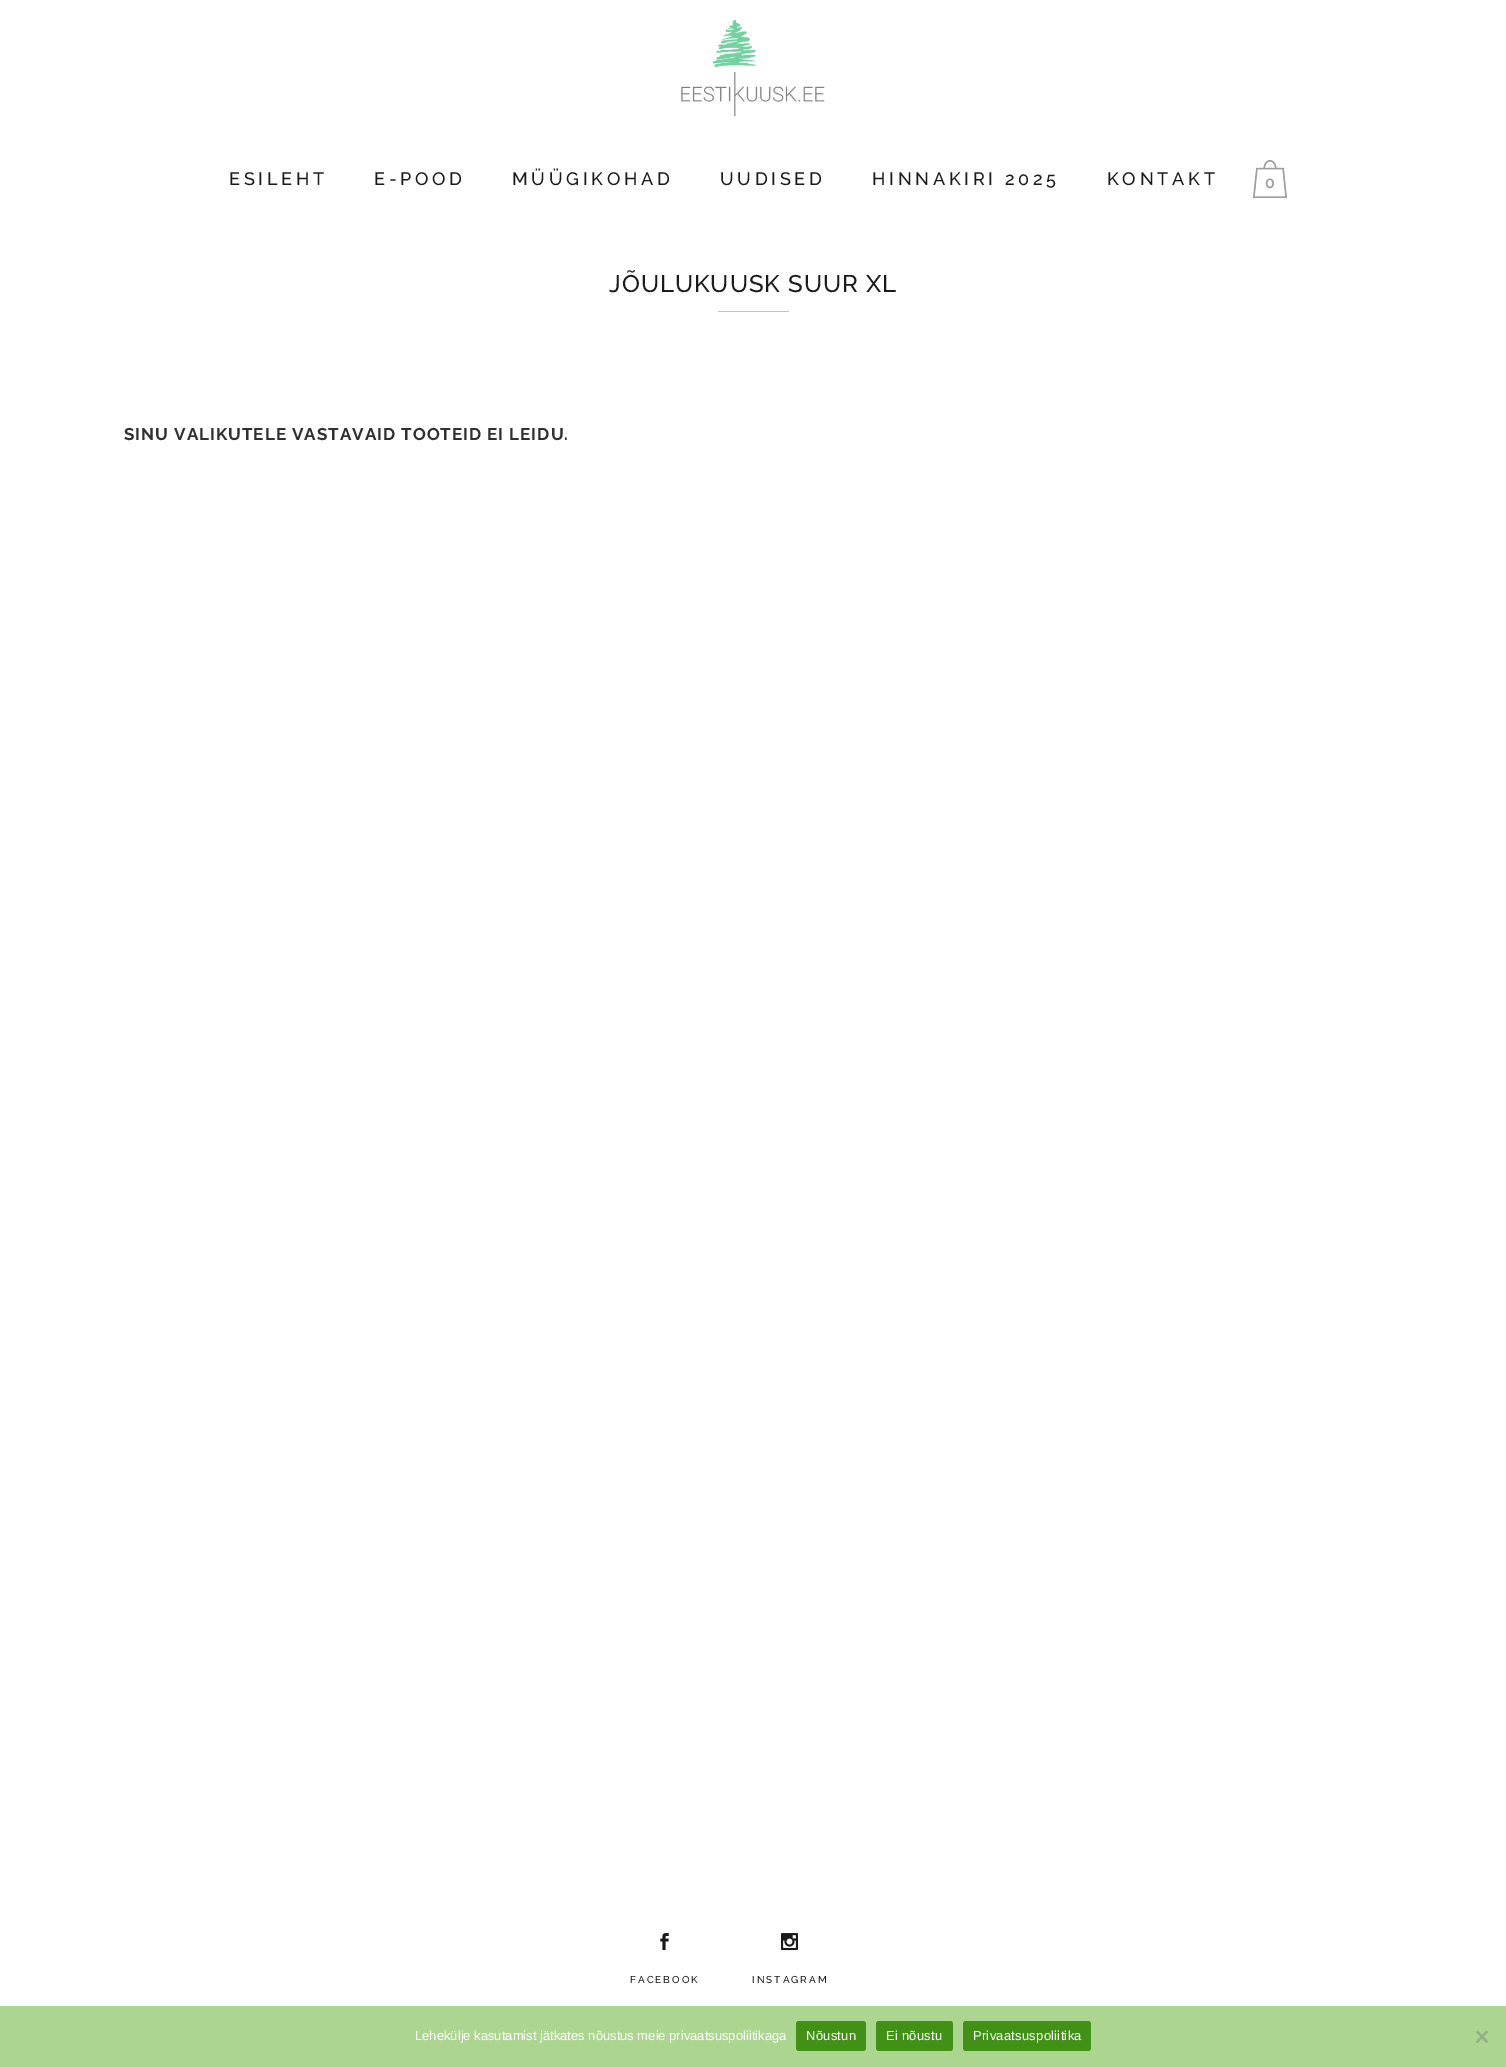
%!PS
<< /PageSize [1506 2067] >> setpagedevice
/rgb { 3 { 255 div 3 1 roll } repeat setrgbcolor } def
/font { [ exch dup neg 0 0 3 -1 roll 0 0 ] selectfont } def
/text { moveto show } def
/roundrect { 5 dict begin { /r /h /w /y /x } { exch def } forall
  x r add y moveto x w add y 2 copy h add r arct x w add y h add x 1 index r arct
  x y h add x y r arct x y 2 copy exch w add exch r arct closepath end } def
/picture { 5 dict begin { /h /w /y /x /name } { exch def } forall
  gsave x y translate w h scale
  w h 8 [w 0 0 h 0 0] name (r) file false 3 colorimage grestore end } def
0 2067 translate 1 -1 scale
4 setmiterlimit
255 255 255 rgb
0 0 1506 2067 rectfill
(img_01.rgb) 681 20 144 96 picture
(img_02.rgb) 1253 160 34 38 picture
194 194 194 rgb
718 311 71 1 rectfill
(img_03.rgb) 660 1933 9 18 picture
(img_04.rgb) 781 1933 17 18 picture
172 214 143 rgb
0 2006 1506 61 rectfill
65 145 23 rgb
796 2021 70 30 3 roundrect fill
876 2021 77 30 3 roundrect fill
963 2021 128 30 3 roundrect fill
150 171 136 rgb
1486.5 2030.5 moveto 1.5 1.5 rlineto -10.5 11 rlineto -1.5 -1.5 rlineto closepath fill
1476 2032 moveto 1.5 -1.5 rlineto 10.5 11 rlineto -1.5 1.5 rlineto closepath fill
/Raleway-Medium 18 font
26 26 26 rgb
229 185 moveto 3.75 0 (ESILEHT) ashow
374 185 moveto 3.75 0 (E-POOD) ashow
512 185 moveto 3.75 0 (MÜÜGIKOHAD) ashow
720 185 moveto 3.75 0 (UUDISED) ashow
872 185 moveto 3.75 0 (HINNAKIRI 2025) ashow
1107 185 moveto 3.75 0 (KONTAKT) ashow
/Raleway-SemiBold 16 font
157 157 157 rgb
(0) 1265 188 text
/Raleway-Medium 24 font
26 26 26 rgb
609 292 moveto 1 0 (JÕULUKUUSK SUUR XL) ashow
/Raleway-Bold 17 font
48 48 48 rgb
124 440 moveto 1 0 (SINU VALIKUTELE VASTAVAID TOOTEID EI LEIDU.) ashow
/Raleway-Medium 10 font
26 26 26 rgb
630 1983 moveto 2 0 (FACEBOOK) ashow
752 1983 moveto 2 0 (INSTAGRAM) ashow
/LiberationSans-Regular 13 font
255 255 255 rgb
(Lehekülje kasutamist jätkates nõustus meie privaatsuspoliitikaga) 415 2040 text
806 2040 moveto 0.25 0 (Nõustun) ashow
886 2040 moveto 0.25 0 (Ei nõustu) ashow
973 2040 moveto 0.25 0 (Privaatsuspoliitika) ashow
showpage
